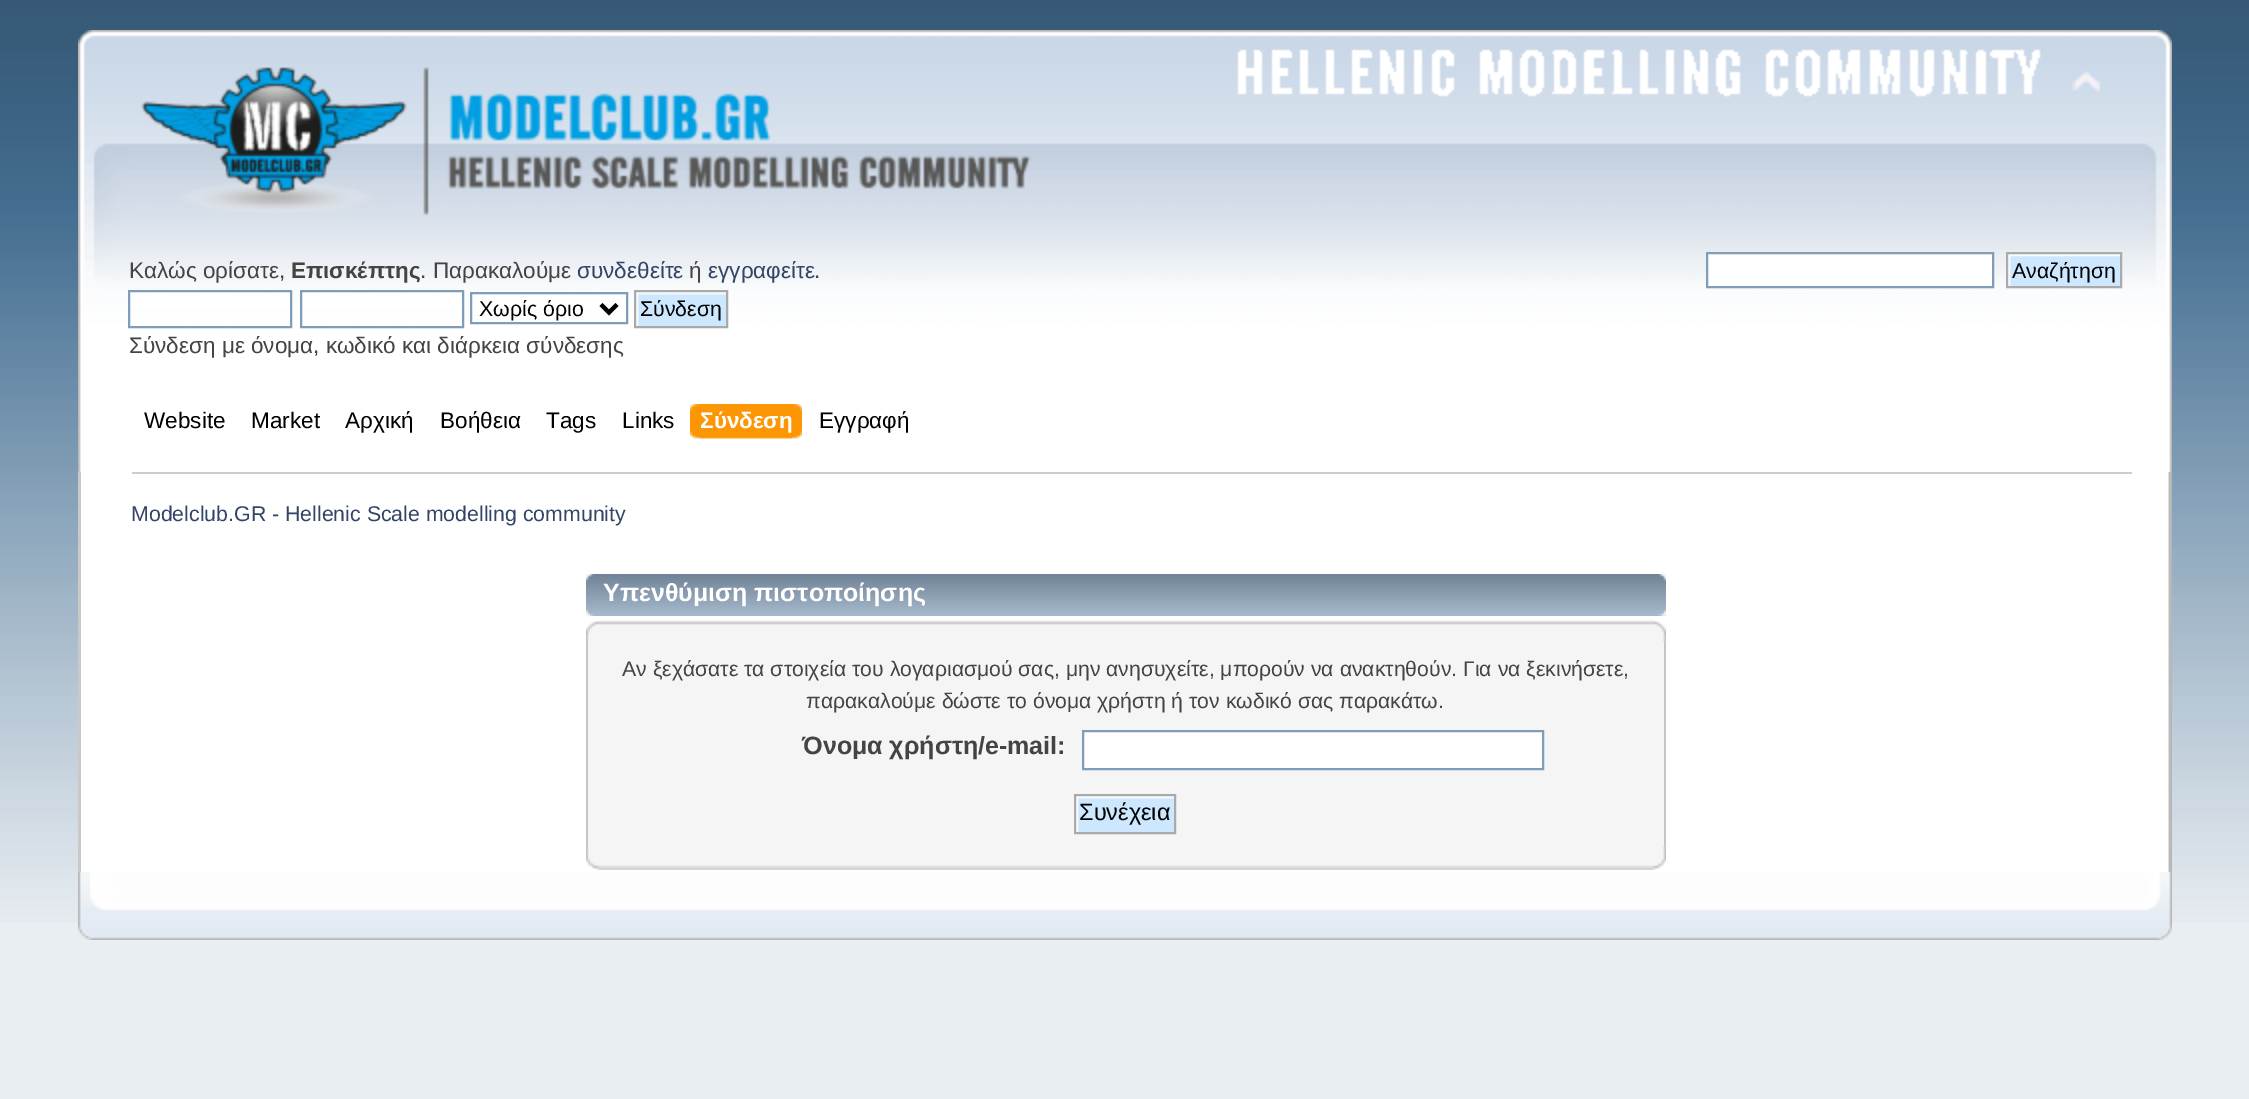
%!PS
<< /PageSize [2249 1099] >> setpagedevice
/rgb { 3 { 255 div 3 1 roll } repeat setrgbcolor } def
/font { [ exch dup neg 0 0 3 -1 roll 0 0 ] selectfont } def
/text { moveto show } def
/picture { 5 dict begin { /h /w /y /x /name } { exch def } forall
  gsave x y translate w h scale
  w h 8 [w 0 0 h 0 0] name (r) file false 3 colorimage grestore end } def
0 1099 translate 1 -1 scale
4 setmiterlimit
233 238 242 rgb
0 0 2249 1099 rectfill
(img_01.rgb) 0 0 2249 923 picture
(img_02.rgb) 78 30 2067 442 picture
(img_03.rgb) 2145 30 27 442 picture
(img_04.rgb) 141 67 890 149 picture
(img_05.rgb) 1237 49 804 48 picture
(img_06.rgb) 2072 71 29 23 picture
255 255 255 rgb
130 292 160 18 rectfill
127 157 185 rgb
2 setlinewidth
129 291 162 36 rectstroke
255 255 255 rgb
302 292 160 18 rectfill
127 157 185 rgb
301 291 162 36 rectstroke
255 255 255 rgb
472 294 154 16 rectfill
127 157 185 rgb
471 293 156 30 rectstroke
0 0 0 rgb
4 setlinewidth
601 304.5 moveto 8 8 rlineto 8 -8 rlineto stroke
(img_07.rgb) 636 292 90 34 picture
170 170 170 rgb
2 setlinewidth
635 291 92 36 rectstroke
255 255 255 rgb
1707 253 moveto 286 0 rlineto 0 34 rlineto -286 0 rlineto closepath gsave fill grestore
127 157 185 rgb
stroke
(img_08.rgb) 2008 254 112 32 picture
170 170 170 rgb
2007 253 114 34 rectstroke
(img_09.rgb) 700 404 102 35 picture
(img_10.rgb) 690 404 102 35 picture
255 255 255 rgb
81 472 2087 400 rectfill
201 201 201 rgb
78 472 3 400 rectfill
(img_11.rgb) 2168 472 4 400 picture
204 204 204 rgb
132 472 2000 2 rectfill
(img_12.rgb) 586 574 1080 42 picture
(img_13.rgb) 1658 574 8 42 picture
(img_14.rgb) 586 620 1068 22 picture
(img_15.rgb) 1654 620 12 22 picture
245 245 245 rgb
588 642 1076 204 rectfill
197 197 197 rgb
1664 642 2 204 rectfill
586 642 2 204 rectfill
255 255 255 rgb
1083 731 moveto 460 0 rlineto 0 38 rlineto -460 0 rlineto closepath gsave fill grestore
127 157 185 rgb
stroke
(img_16.rgb) 1076 796 98 36 picture
170 170 170 rgb
1075 795 100 38 rectstroke
(img_17.rgb) 586 846 1066 24 picture
(img_18.rgb) 1652 846 14 24 picture
(img_19.rgb) 78 872 2070 68 picture
(img_20.rgb) 2148 872 24 68 picture
/LiberationSans-Regular 22.5 font
68 68 68 rgb
(Καλώς ορίσατε,) 129 278 text
/LiberationSans-Bold 22.5 font
(Επισκέπτης) 291 278 text
/LiberationSans-Regular 22.5 font
(. Παρακαλούμε) 420 278 text
51 68 102 rgb
(συνδεθείτε) 577 278 text
68 68 68 rgb
(ή) 689 278 text
51 68 102 rgb
(εγγραφείτε) 708 278 text
68 68 68 rgb
(.) 814 278 text
/LiberationSans-Regular 21.3 font
0 0 0 rgb
(Χωρίς όριο) 479 316 text
(Σύνδεση) 640 316 text
/LiberationSans-Regular 22.5 font
68 68 68 rgb
(Σύνδεση με όνομα, κωδικό και διάρκεια σύνδεσης) 129 353 text
/LiberationSans-Regular 21.3 font
0 0 0 rgb
(Αναζήτηση) 2012 278 text
/LiberationSans-Regular 22.5 font
(Website) 144 428 text
(Market) 251 428 text
(Αρχική) 345 428 text
(Βοήθεια) 440 428 text
(Tags) 546 428 text
(Links) 622 428 text
/LiberationSans-Bold 22.5 font
255 255 255 rgb
(Σύνδεση) 700 428 text
/LiberationSans-Regular 22.5 font
0 0 0 rgb
(Εγγραφή) 819 428 text
/LiberationSans-Regular 21.3 font
51 68 102 rgb
(Modelclub.GR - Hellenic Scale modelling community) 131 521 text
/LiberationSans-Bold 25 font
255 255 255 rgb
(Υπενθύμιση πιστοποίησης) 603 601 text
/LiberationSans-Regular 21.2 font
68 68 68 rgb
(Αν ξεχάσατε τα στοιχεία του λογαριασμού σας, μην ανησυχείτε, μπορούν να ανακτηθούν. Για να ξεκινήσετε,) 622 676 text
(παρακαλούμε δώστε το όνομα χρήστη ή τον κωδικό σας παρακάτω.) 806 708 text
/LiberationSans-Bold 25 font
(Όνομα χρήστη/e-mail:) 802 754 text
/LiberationSans-Regular 23.5 font
0 0 0 rgb
(Συνέχεια) 1079 820 text
showpage
